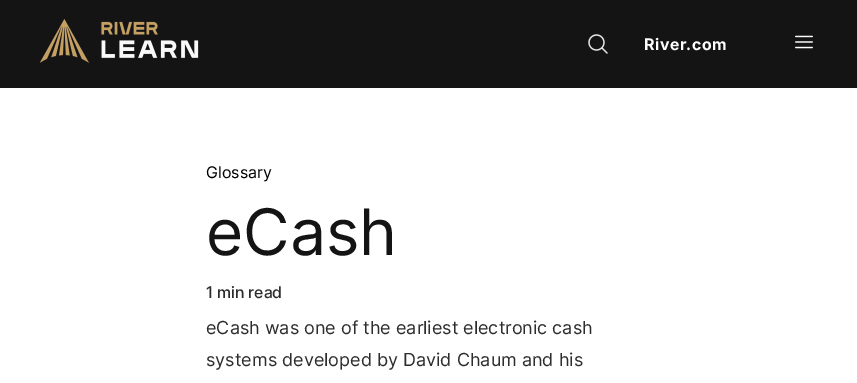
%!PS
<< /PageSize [857 383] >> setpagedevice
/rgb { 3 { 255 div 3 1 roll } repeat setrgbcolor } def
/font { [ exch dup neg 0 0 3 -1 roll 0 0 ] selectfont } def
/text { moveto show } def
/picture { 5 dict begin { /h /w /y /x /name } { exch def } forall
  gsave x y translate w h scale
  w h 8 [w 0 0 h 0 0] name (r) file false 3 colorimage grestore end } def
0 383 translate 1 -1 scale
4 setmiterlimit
255 255 255 rgb
0 0 857 383 rectfill
20 20 21 rgb
0 0 857 88 rectfill
(img_01.rgb) 40 19 159 44 picture
(img_02.rgb) 588 34 20 20 picture
(img_03.rgb) 795 35 18 14 picture
/Inter-Bold 16 font
255 255 255 rgb
644 50 moveto 0.5 0 (River.com) ashow
/Inter-Regular 16 font
0 0 0 rgb
(Glossary) 206 178 text
/Inter-Regular 64 font
20 20 21 rgb
(eCash) 206 255 text
/Inter-Medium 16 font
45 45 45 rgb
(1 min read) 206 298 text
/Inter-Regular 18 font
(eCash was one of the earliest electronic cash) 206 334 text
(systems developed by David Chaum and his) 206 366 text
showpage
